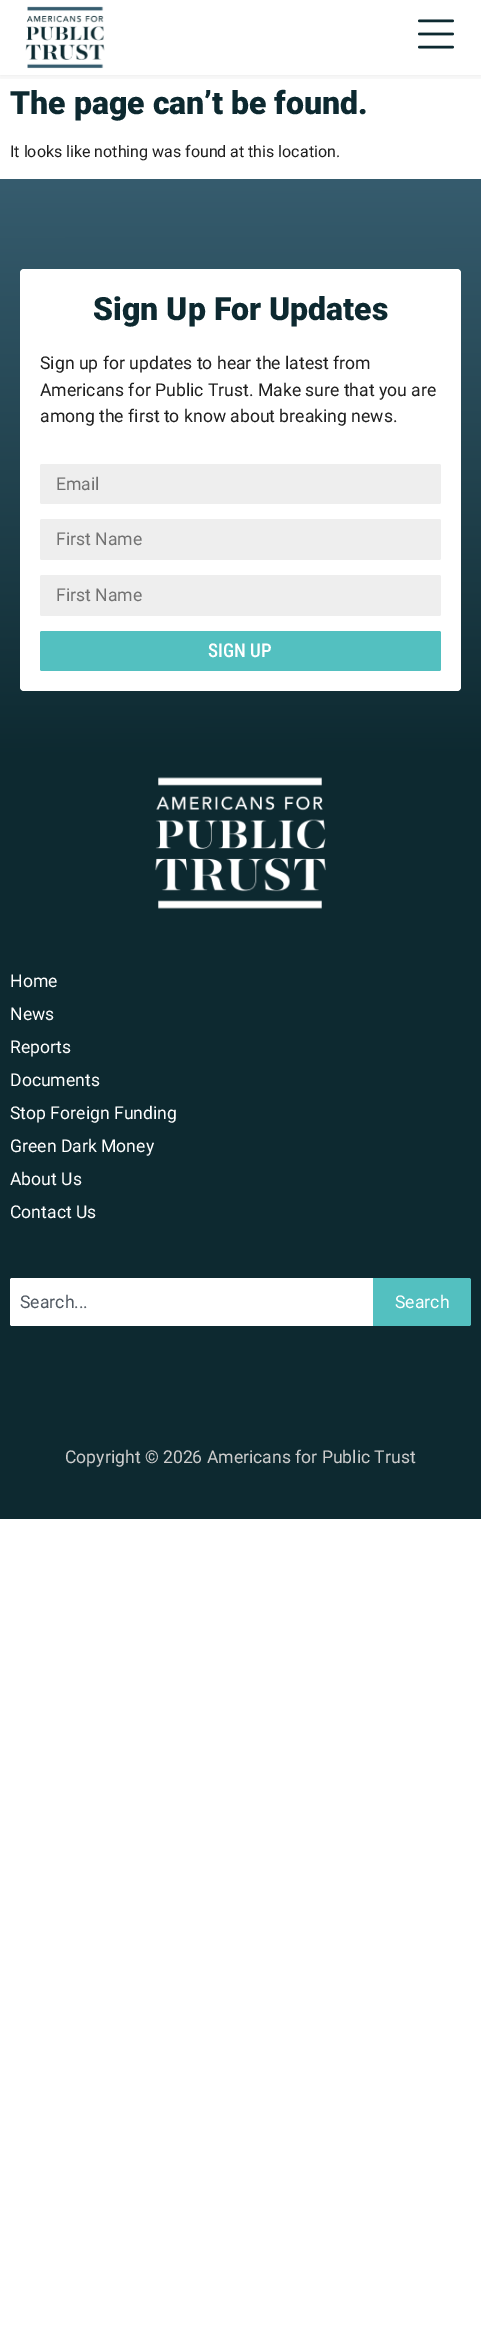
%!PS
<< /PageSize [481 2348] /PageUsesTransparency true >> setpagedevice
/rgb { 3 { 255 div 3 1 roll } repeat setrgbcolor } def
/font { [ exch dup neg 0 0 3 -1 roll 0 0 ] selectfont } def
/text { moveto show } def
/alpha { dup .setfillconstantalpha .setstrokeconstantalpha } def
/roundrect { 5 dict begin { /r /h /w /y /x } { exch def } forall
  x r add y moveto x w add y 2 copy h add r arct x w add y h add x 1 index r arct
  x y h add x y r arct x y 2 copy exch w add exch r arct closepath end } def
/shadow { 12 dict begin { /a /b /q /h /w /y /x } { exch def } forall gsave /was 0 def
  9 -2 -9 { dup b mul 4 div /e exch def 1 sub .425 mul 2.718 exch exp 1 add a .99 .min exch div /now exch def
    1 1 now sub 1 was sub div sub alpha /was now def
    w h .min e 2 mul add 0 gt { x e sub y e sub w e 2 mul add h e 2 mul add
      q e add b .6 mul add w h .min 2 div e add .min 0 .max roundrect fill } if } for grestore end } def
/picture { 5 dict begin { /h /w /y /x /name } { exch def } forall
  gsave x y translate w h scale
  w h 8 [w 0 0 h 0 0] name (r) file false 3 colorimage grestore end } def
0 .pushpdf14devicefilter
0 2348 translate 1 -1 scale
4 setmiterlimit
255 255 255 rgb
0 0 481 2348 rectfill
gsave
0 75 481 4 rectclip
0 0 0 rgb
0 0 481 75 0 5 0.1 shadow
grestore
(img_01.rgb) 25 6 80 63 picture
(img_02.rgb) 418 19 36 30 picture
gsave 0 179 moveto 481 0 rlineto 0 582 rlineto -481 0 rlineto closepath clip newpath
<< /ShadingType 2 /ColorSpace /DeviceRGB /Coords [240 179 241 761] /Extend [true true] /Function << /FunctionType 2 /Domain [0 1] /C0 [0.212 0.361 0.431] /C1 [0.051 0.161 0.188] /N 1 >> >> shfill grestore
20 269 441 422 4 roundrect fill
238 238 238 rgb
40 464 401 40 2 roundrect fill
40 519 401 41 2 roundrect fill
40 575 401 41 2 roundrect fill
83 192 192 rgb
40 631 401 40 2 roundrect fill
13 41 48 rgb
0 761 481 758 rectfill
(img_03.rgb) 155 777 171 132 picture
255 255 255 rgb
12 1278 moveto 361 0 rlineto 0 48 rlineto -361 0 rlineto -1 0 -2 -1 -2 -2 rcurveto 0 -44 rlineto 0 -1 1 -2 2 -2 rcurveto closepath fill
83 192 192 rgb
373 1278 moveto 96 0 rlineto 1 0 2 1 2 2 rcurveto 0 44 rlineto 0 1 -1 2 -2 2 rcurveto -96 0 rlineto closepath fill
/Roboto-Black 32 font
13 41 48 rgb
(The page can’t be found.) 10 114 text
/Roboto-Regular 16 font
31 31 31 rgb
(It looks like nothing was found at this location.) 10 157 text
/Roboto-Black 32 font
13 41 48 rgb
(Sign Up For Updates) 93 320 text
/Roboto-Regular 17.6 font
31 31 31 rgb
(Sign up for updates to hear the latest from) 40 369 text
(Americans for Public Trust. Make sure that you are) 40 396 text
(among the first to know about breaking news.) 40 422 text
114 114 114 rgb
(Email) 56 490 text
(First Name) 56 545 text
(First Name) 56 601 text
/RobotoCondensed-Medium 19 font
255 255 255 rgb
(SIGN UP) 208 657 text
/Roboto-Regular 17.6 font
(Home) 10 987 text
(News) 10 1020 text
(Reports) 10 1053 text
(Documents) 10 1086 text
(Stop Foreign Funding) 10 1119 text
(Green Dark Money) 10 1152 text
(About Us) 10 1185 text
(Contact Us) 10 1218 text
81 89 98 rgb
(Search...) 20 1308 text
255 255 255 rgb
(Search) 395 1308 text
204 204 204 rgb
(Copyright © 2026 Americans for Public Trust) 65 1463 text
.poppdf14devicefilter showpage
